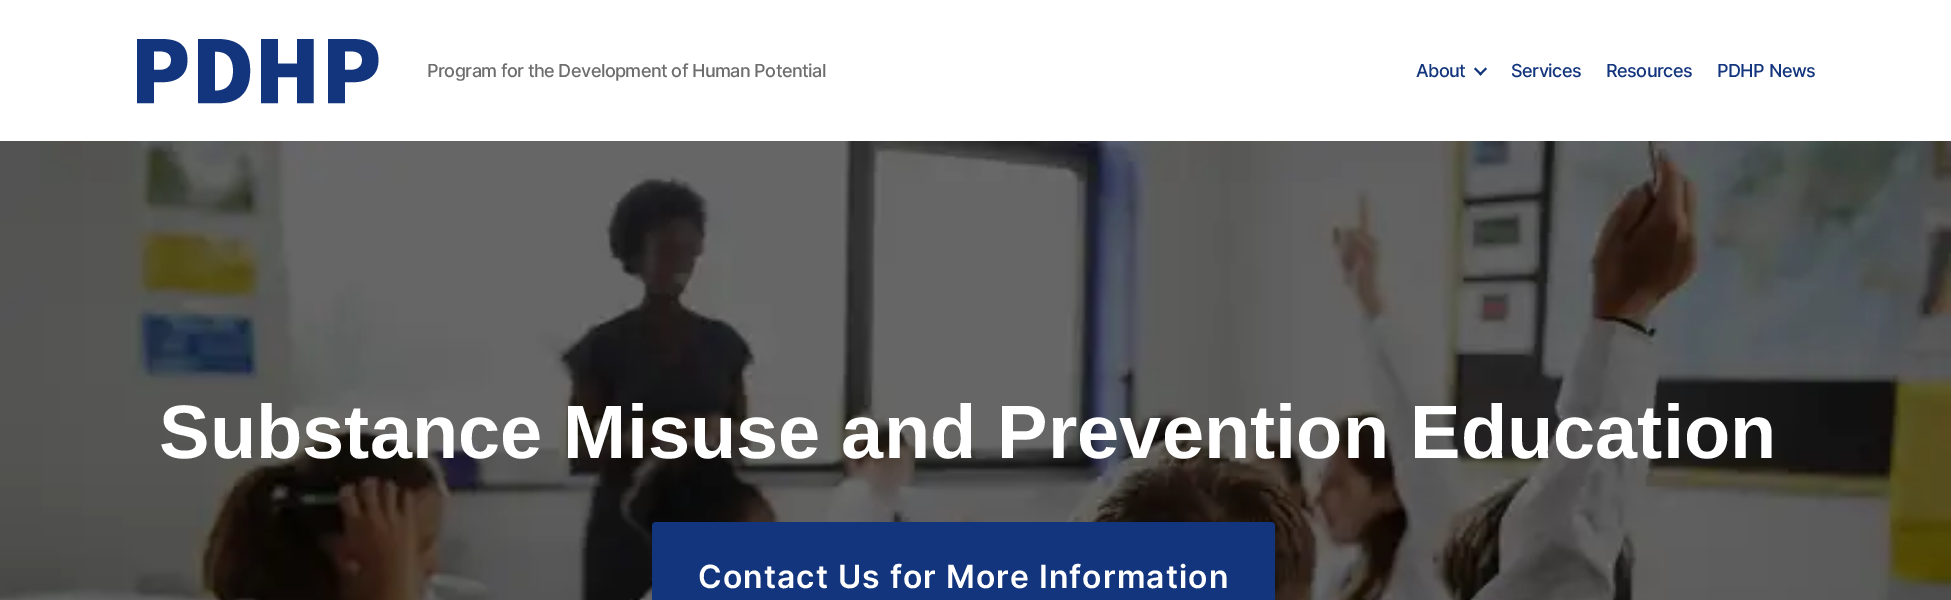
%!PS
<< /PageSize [1951 600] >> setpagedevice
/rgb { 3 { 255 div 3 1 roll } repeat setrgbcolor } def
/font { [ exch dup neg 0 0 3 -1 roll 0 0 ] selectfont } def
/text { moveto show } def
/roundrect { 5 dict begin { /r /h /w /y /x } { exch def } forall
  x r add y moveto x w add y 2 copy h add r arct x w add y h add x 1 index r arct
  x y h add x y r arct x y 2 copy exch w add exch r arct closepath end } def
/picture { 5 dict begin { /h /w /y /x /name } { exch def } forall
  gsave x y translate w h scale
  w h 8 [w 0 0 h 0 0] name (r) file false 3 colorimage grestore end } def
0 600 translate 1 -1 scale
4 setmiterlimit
255 255 255 rgb
0 0 1951 600 rectfill
(img_01.rgb) 137 39 242 65 picture
18 53 125 rgb
1474 69 moveto 1.5 -1.5 rlineto 6.5 6.5 rlineto -1.5 1.5 rlineto closepath fill
1479 74 moveto 6.5 -6.5 rlineto 1.5 1.5 rlineto -6.5 6.5 rlineto closepath fill
(img_02.rgb) 0 141 1951 459 picture
652 522 623 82 4 roundrect fill
/Inter-Medium 18 font
109 109 109 rgb
427 77 moveto -0.55 0 (Program for the Development of Human Potential) ashow
18 53 125 rgb
1416 77 moveto -0.5 0 (About) ashow
1511 77 moveto -0.5 0 (Services) ashow
1606 77 moveto -0.5 0 (Resources) ashow
1717 77 moveto -0.5 0 (PDHP News) ashow
/LiberationSans-Bold 75.8 font
255 255 255 rgb
(Substance Misuse and Prevention Education) 159 458 text
/Inter-SemiBold 31.9 font
698 588 moveto 1.05 0 (Contact Us for More Information) ashow
showpage
